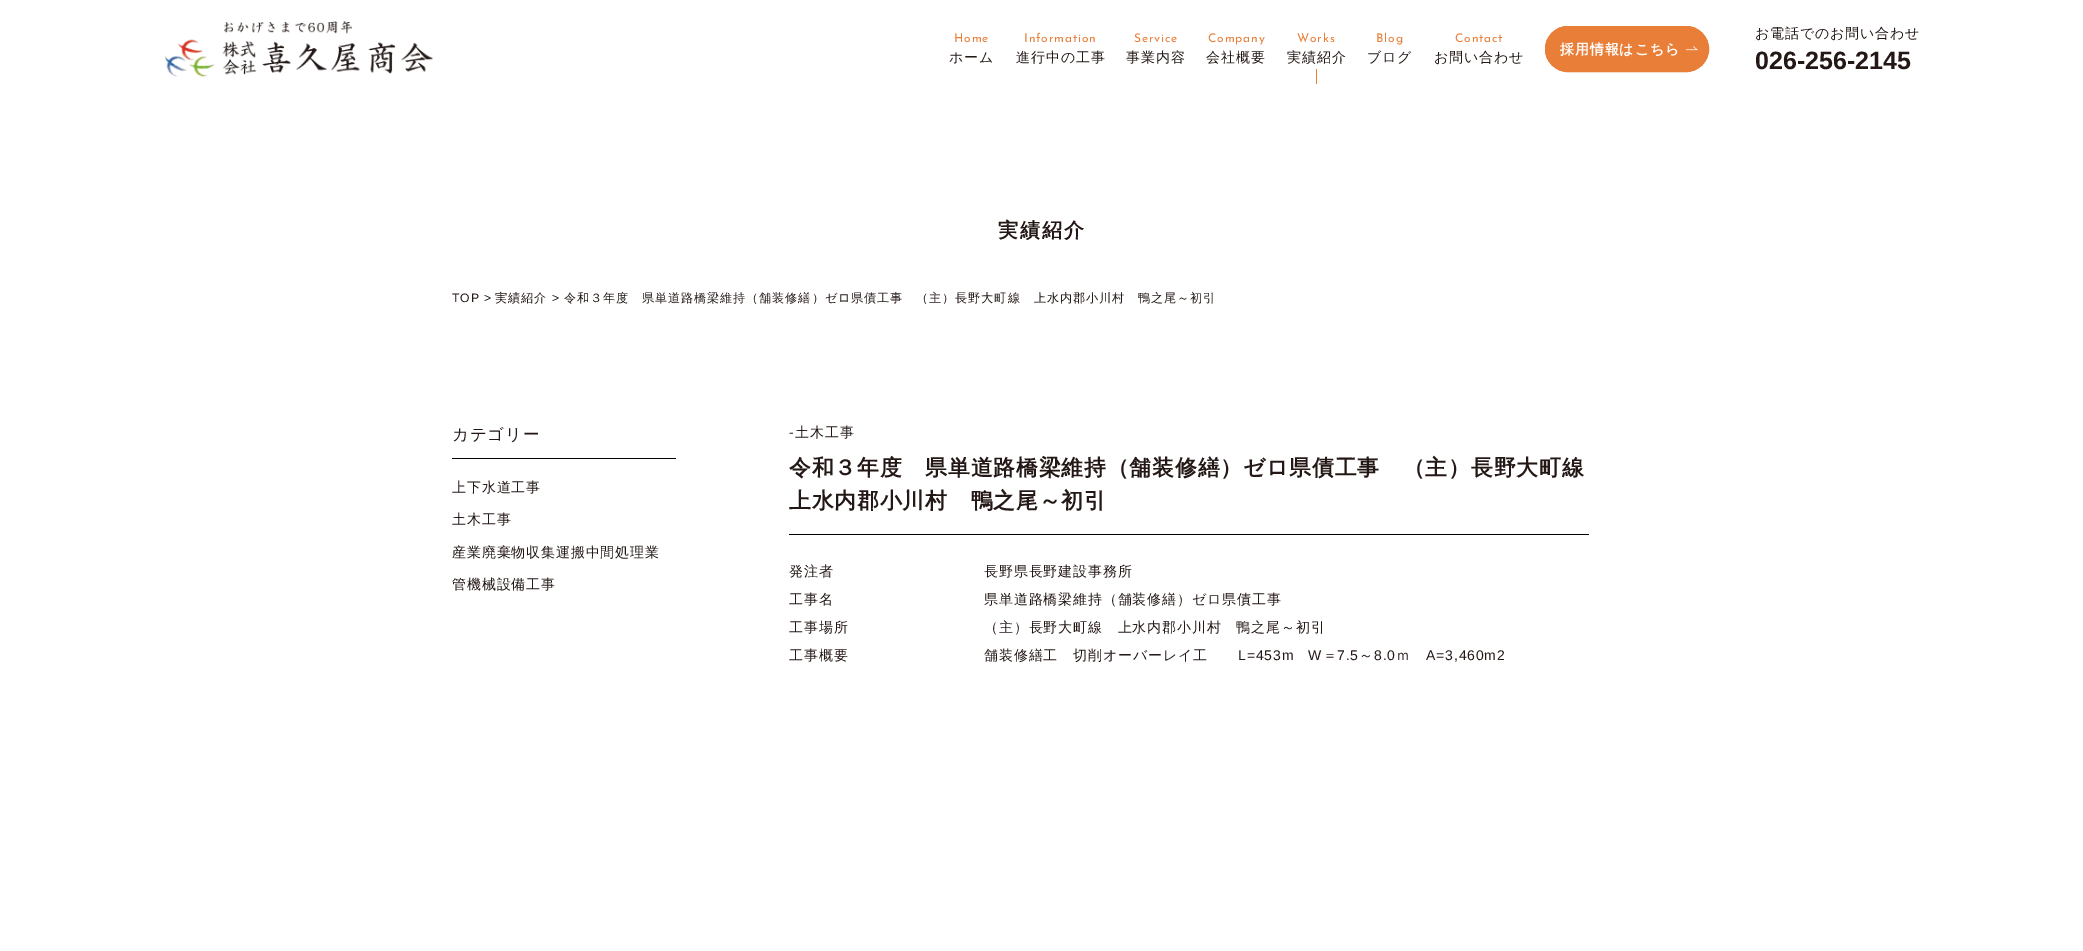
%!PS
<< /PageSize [2083 951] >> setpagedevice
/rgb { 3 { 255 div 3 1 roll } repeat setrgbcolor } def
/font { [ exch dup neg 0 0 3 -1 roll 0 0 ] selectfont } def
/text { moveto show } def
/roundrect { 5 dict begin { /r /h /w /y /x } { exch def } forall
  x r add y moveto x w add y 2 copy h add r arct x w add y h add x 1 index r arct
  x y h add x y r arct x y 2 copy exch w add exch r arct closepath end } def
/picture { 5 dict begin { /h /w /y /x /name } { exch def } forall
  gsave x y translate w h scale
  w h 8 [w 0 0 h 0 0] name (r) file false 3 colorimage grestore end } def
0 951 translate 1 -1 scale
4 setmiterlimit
255 255 255 rgb
0 0 2083 951 rectfill
(img_01.rgb) 164 21 269 56 picture
232 126 56 rgb
1316 69 1 15 rectfill
1545 26 164 46 23 roundrect fill
(img_02.rgb) 1686 46 12 5 picture
1545.5 26.5 163 45 22.5 roundrect stroke
0 0 0 rgb
452 458 224 1 rectfill
789 534 800 1 rectfill
/JosefinSans-Thin 12 font
232 126 56 rgb
954 42 moveto 0.85 0 (Home) ashow
/WenQuanYiZenHei-Medium 14 font
35 24 21 rgb
949 62 moveto 0.85 0 (ホーム) ashow
/JosefinSans-Thin 12 font
232 126 56 rgb
1024 42 moveto 0.85 0 (Information) ashow
/WenQuanYiZenHei-Medium 14 font
35 24 21 rgb
1016 62 moveto 0.85 0 (進行中の工事) ashow
/JosefinSans-Thin 12 font
232 126 56 rgb
1134 42 moveto 0.85 0 (Service) ashow
/WenQuanYiZenHei-Medium 14 font
35 24 21 rgb
1126 62 moveto 0.85 0 (事業内容) ashow
/JosefinSans-Thin 12 font
232 126 56 rgb
1208 42 moveto 0.85 0 (Company) ashow
/WenQuanYiZenHei-Medium 14 font
35 24 21 rgb
1206 62 moveto 0.85 0 (会社概要) ashow
/JosefinSans-Thin 12 font
232 126 56 rgb
1297 42 moveto 0.85 0 (Works) ashow
/WenQuanYiZenHei-Medium 14 font
35 24 21 rgb
1287 62 moveto 0.85 0 (実績紹介) ashow
/JosefinSans-Thin 12 font
232 126 56 rgb
1376 42 moveto 0.85 0 (Blog) ashow
/WenQuanYiZenHei-Medium 14 font
35 24 21 rgb
1367 62 moveto 0.85 0 (ブログ) ashow
/JosefinSans-Thin 12 font
232 126 56 rgb
1455 42 moveto 0.85 0 (Contact) ashow
/WenQuanYiZenHei-Medium 14 font
35 24 21 rgb
1434 62 moveto 0.85 0 (お問い合わせ) ashow
/WenQuanYiZenHei-Bold 14 font
255 255 255 rgb
1560 54 moveto 0.85 0 (採用情報はこちら) ashow
/WenQuanYiZenHei-Medium 14 font
35 24 21 rgb
1755 38 moveto 0.85 0 (お電話でのお問い合わせ) ashow
/LiberationSans-Bold 25 font
(026-256-2145) 1755 69 text
/WenQuanYiZenHei-Bold 20 font
998 237 moveto 2 0 (実績紹介) ashow
/LiberationSans-Regular 12.18 font
452 302 moveto 0.85 0 (TOP >) ashow
/WenQuanYiZenHei-Medium 12.18 font
495 302 moveto 0.85 0 (実績紹介) ashow
/LiberationSans-Regular 12.18 font
552 302 moveto 0.85 0 (>) ashow
/WenQuanYiZenHei-Medium 12.18 font
564 302 moveto 0.85 0 (令和３年度　県単道路橋梁維持（舗装修繕）ゼロ県債工事　（主）長野大町線　上水内郡小川村　鴨之尾～初引) ashow
/WenQuanYiZenHei-Medium 16.5 font
452 440 moveto 0.85 0 (カテゴリー) ashow
/WenQuanYiZenHei-Medium 14 font
452 492 moveto 0.85 0 (上下水道工事) ashow
452 524 moveto 0.85 0 (土木工事) ashow
452 557 moveto 0.85 0 (産業廃棄物収集運搬中間処理業) ashow
452 589 moveto 0.85 0 (管機械設備工事) ashow
/LiberationSans-Regular 14 font
789 437 moveto 0.85 0 (-) ashow
/WenQuanYiZenHei-Medium 14 font
795 437 moveto 0.85 0 (土木工事) ashow
/WenQuanYiZenHei-Bold 21.85 font
789 475 moveto 0.85 0 (令和３年度　県単道路橋梁維持（舗装修繕）ゼロ県債工事　（主）長野大町線) ashow
789 508 moveto 0.85 0 (上水内郡小川村　鴨之尾～初引) ashow
/WenQuanYiZenHei-Medium 14 font
789 576 moveto 0.85 0 (発注者) ashow
984 576 moveto 0.85 0 (長野県長野建設事務所) ashow
789 604 moveto 0.85 0 (工事名) ashow
984 604 moveto 0.85 0 (県単道路橋梁維持（舗装修繕）ゼロ県債工事) ashow
789 632 moveto 0.85 0 (工事場所) ashow
984 632 moveto 0.85 0 (（主）長野大町線　上水内郡小川村　鴨之尾～初引) ashow
789 660 moveto 0.85 0 (工事概要) ashow
984 660 moveto 0.85 0 (舗装修繕工　切削オーバーレイ工) ashow
/LiberationSans-Regular 14 font
1238 660 moveto 0.85 0 (L=453m) ashow
1308 660 moveto 0.85 0 (W) ashow
/WenQuanYiZenHei-Medium 14 font
1323 660 moveto 0.85 0 (＝) ashow
/LiberationSans-Regular 14 font
1337 660 moveto 0.85 0 (7.5) ashow
/WenQuanYiZenHei-Medium 14 font
1359 660 moveto 0.85 0 (～) ashow
/LiberationSans-Regular 14 font
1374 660 moveto 0.85 0 (8.0) ashow
/WenQuanYiZenHei-Medium 14 font
1396 660 moveto 0.85 0 (ｍ) ashow
/LiberationSans-Regular 14 font
1426 660 moveto 0.85 0 (A=3,460m2) ashow
showpage
